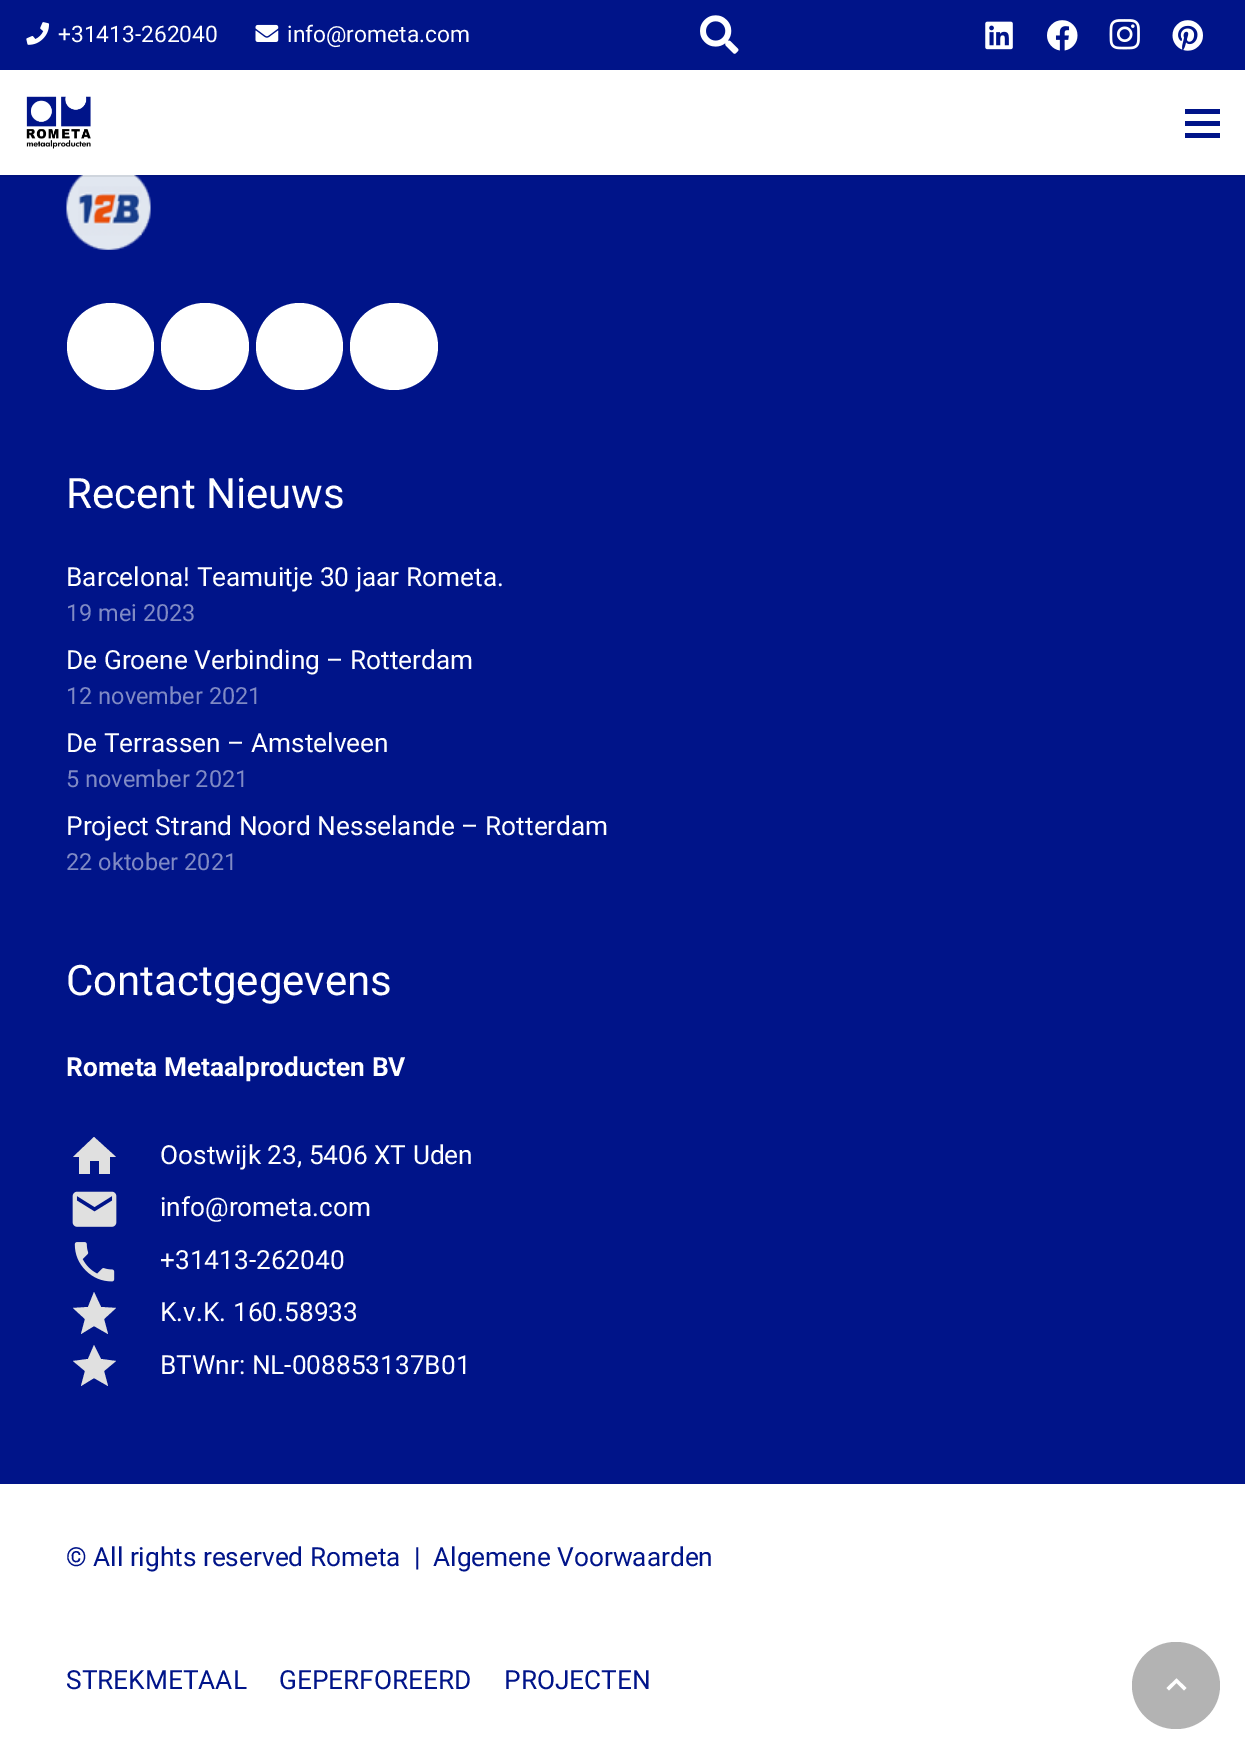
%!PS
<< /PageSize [1245 1754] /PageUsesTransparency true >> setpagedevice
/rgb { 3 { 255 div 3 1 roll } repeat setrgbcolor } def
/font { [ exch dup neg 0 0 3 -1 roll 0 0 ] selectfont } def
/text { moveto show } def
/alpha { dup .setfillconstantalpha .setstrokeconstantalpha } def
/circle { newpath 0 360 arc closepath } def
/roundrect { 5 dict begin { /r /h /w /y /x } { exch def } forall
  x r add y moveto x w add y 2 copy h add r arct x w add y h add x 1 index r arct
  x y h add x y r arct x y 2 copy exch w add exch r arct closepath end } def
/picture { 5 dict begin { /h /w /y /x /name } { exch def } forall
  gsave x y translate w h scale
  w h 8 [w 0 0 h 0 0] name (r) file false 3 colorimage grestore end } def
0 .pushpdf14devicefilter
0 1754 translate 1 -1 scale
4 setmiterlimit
255 255 255 rgb
0 0 1245 1754 rectfill
0 20 137 rgb
0 0 1245 70 rectfill
(img_01.rgb) 26 22 24 23 picture
(img_02.rgb) 255 24 24 18 picture
(img_03.rgb) 700 15 39 39 picture
(img_04.rgb) 985 21 28 29 picture
(img_05.rgb) 1047 20 31 31 picture
(img_06.rgb) 1109 19 31 31 picture
(img_07.rgb) 1172 20 31 31 picture
0 175 1245 1309 rectfill
(img_09.rgb) 66 175 85 75 picture
0.08 alpha
0 0 0 rgb
0 175 1245 2 rectfill
1 alpha
(img_08.rgb) 26 96 65 53 picture
0 20 137 rgb
1185 121 35 5 rectfill
1185 109 35 5 rectfill
1185 133 35 5 rectfill
255 255 255 rgb
110.5 346.5 43.5 circle fill
161 303 88 87 43.5 roundrect fill
299.5 346.5 43.5 circle fill
350 303 88 87 43.5 roundrect fill
224 224 224 rgb
90 1174 moveto -11 0 rlineto 0 -17 rlineto -6 0 rlineto 21 -20 rlineto 22 20 rlineto -6 0 rlineto 0 17 rlineto -11 0 rlineto 0 -13 rlineto -9 0 rlineto closepath fill
(img_10.rgb) 72 1191 45 36 picture
(img_11.rgb) 74 1242 41 40 picture
94 1326 moveto -13 8 rlineto 4 -15 rlineto -12 -11 rlineto 15 -1 rlineto 6 -15 rlineto 7 15 rlineto 15 1 rlineto -12 11 rlineto 4 15 rlineto closepath fill
94 1378 moveto -13 8 rlineto 4 -15 rlineto -12 -10 rlineto 15 -2 rlineto 6 -14 rlineto 7 14 rlineto 15 2 rlineto -12 10 rlineto 4 15 rlineto closepath fill
179 179 179 rgb
1132 1642 88 87 43.5 roundrect fill
255 255 255 rgb
1169 1690.5 moveto -2.5 -2.5 rlineto 10 -9.5 rlineto 10 9.5 rlineto -2.5 2.5 rlineto -7.5 -7.5 rlineto closepath fill
/Roboto-Regular 22.75 font
(+31413-262040) 58 42 text
(info@rometa.com) 287 42 text
/Roboto-Regular 42 font
(Recent Nieuws) 66 508 text
/Roboto-Regular 26.25 font
(Barcelona! Teamuitje 30 jaar Rometa.) 66 586 text
/Roboto-Regular 23.5 font
128 138 196 rgb
(19 mei 2023) 66 621 text
/Roboto-Regular 26.25 font
255 255 255 rgb
(De Groene Verbinding – Rotterdam) 66 669 text
/Roboto-Regular 23.5 font
128 138 196 rgb
(12 november 2021) 66 704 text
/Roboto-Regular 26.25 font
255 255 255 rgb
(De Terrassen – Amstelveen) 66 752 text
/Roboto-Regular 23.5 font
128 138 196 rgb
(5 november 2021) 66 787 text
/Roboto-Regular 26.25 font
255 255 255 rgb
(Project Strand Noord Nesselande – Rotterdam) 66 835 text
/Roboto-Regular 23.5 font
128 138 196 rgb
(22 oktober 2021) 66 870 text
/Roboto-Regular 42 font
255 255 255 rgb
(Contactgegevens) 66 995 text
/Roboto-Bold 26.25 font
(Rometa Metaalproducten BV) 66 1076 text
/Roboto-Regular 26.25 font
(Oostwijk 23, 5406 XT Uden) 160 1164 text
(info@rometa.com) 160 1216 text
(+31413-262040) 160 1269 text
(K.v.K. 160.58933) 160 1321 text
(BTWnr: NL-008853137B01) 160 1374 text
0 20 137 rgb
(© All rights reserved Rometa  |) 66 1566 text
(Algemene Voorwaarden) 433 1566 text
(STREKMETAAL) 66 1689 text
(GEPERFOREERD) 279 1689 text
(PROJECTEN) 504 1689 text
.poppdf14devicefilter showpage
